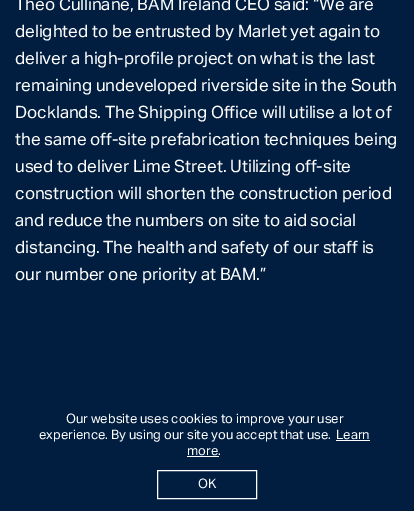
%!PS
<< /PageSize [414 511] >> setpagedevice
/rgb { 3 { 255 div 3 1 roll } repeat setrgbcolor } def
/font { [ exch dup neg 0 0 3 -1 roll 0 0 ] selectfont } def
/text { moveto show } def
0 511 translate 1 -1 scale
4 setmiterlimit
1 30 65 rgb
0 0 414 511 rectfill
255 255 255 rgb
336 440 34 1 rectfill
187 456 32 1 rectfill
157.5 470.5 99 28 rectstroke
/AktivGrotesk-Regular 17 font
(Theo Cullinane, BAM Ireland CEO said: “We are) 15 10 text
(delighted to be entrusted by Marlet yet again to) 15 37 text
(deliver a high-profile project on what is the last) 15 64 text
(remaining undeveloped riverside site in the South) 15 91 text
(Docklands. The Shipping Office will utilise a lot of) 15 118 text
(the same off-site prefabrication techniques being) 15 145 text
(used to deliver Lime Street. Utilizing off-site) 15 172 text
(construction will shorten the construction period) 15 199 text
(and reduce the numbers on site to aid social) 15 226 text
(distancing. The health and safety of our staff is) 15 253 text
(our number one priority at BAM.”) 15 280 text
/AktivGrotesk-Regular 13 font
(Our website uses cookies to improve your user) 66 423 text
(experience. By using our site you accept that use.) 39 439 text
(Learn) 336 439 text
(more.) 187 455 text
(OK) 198 488 text
showpage
